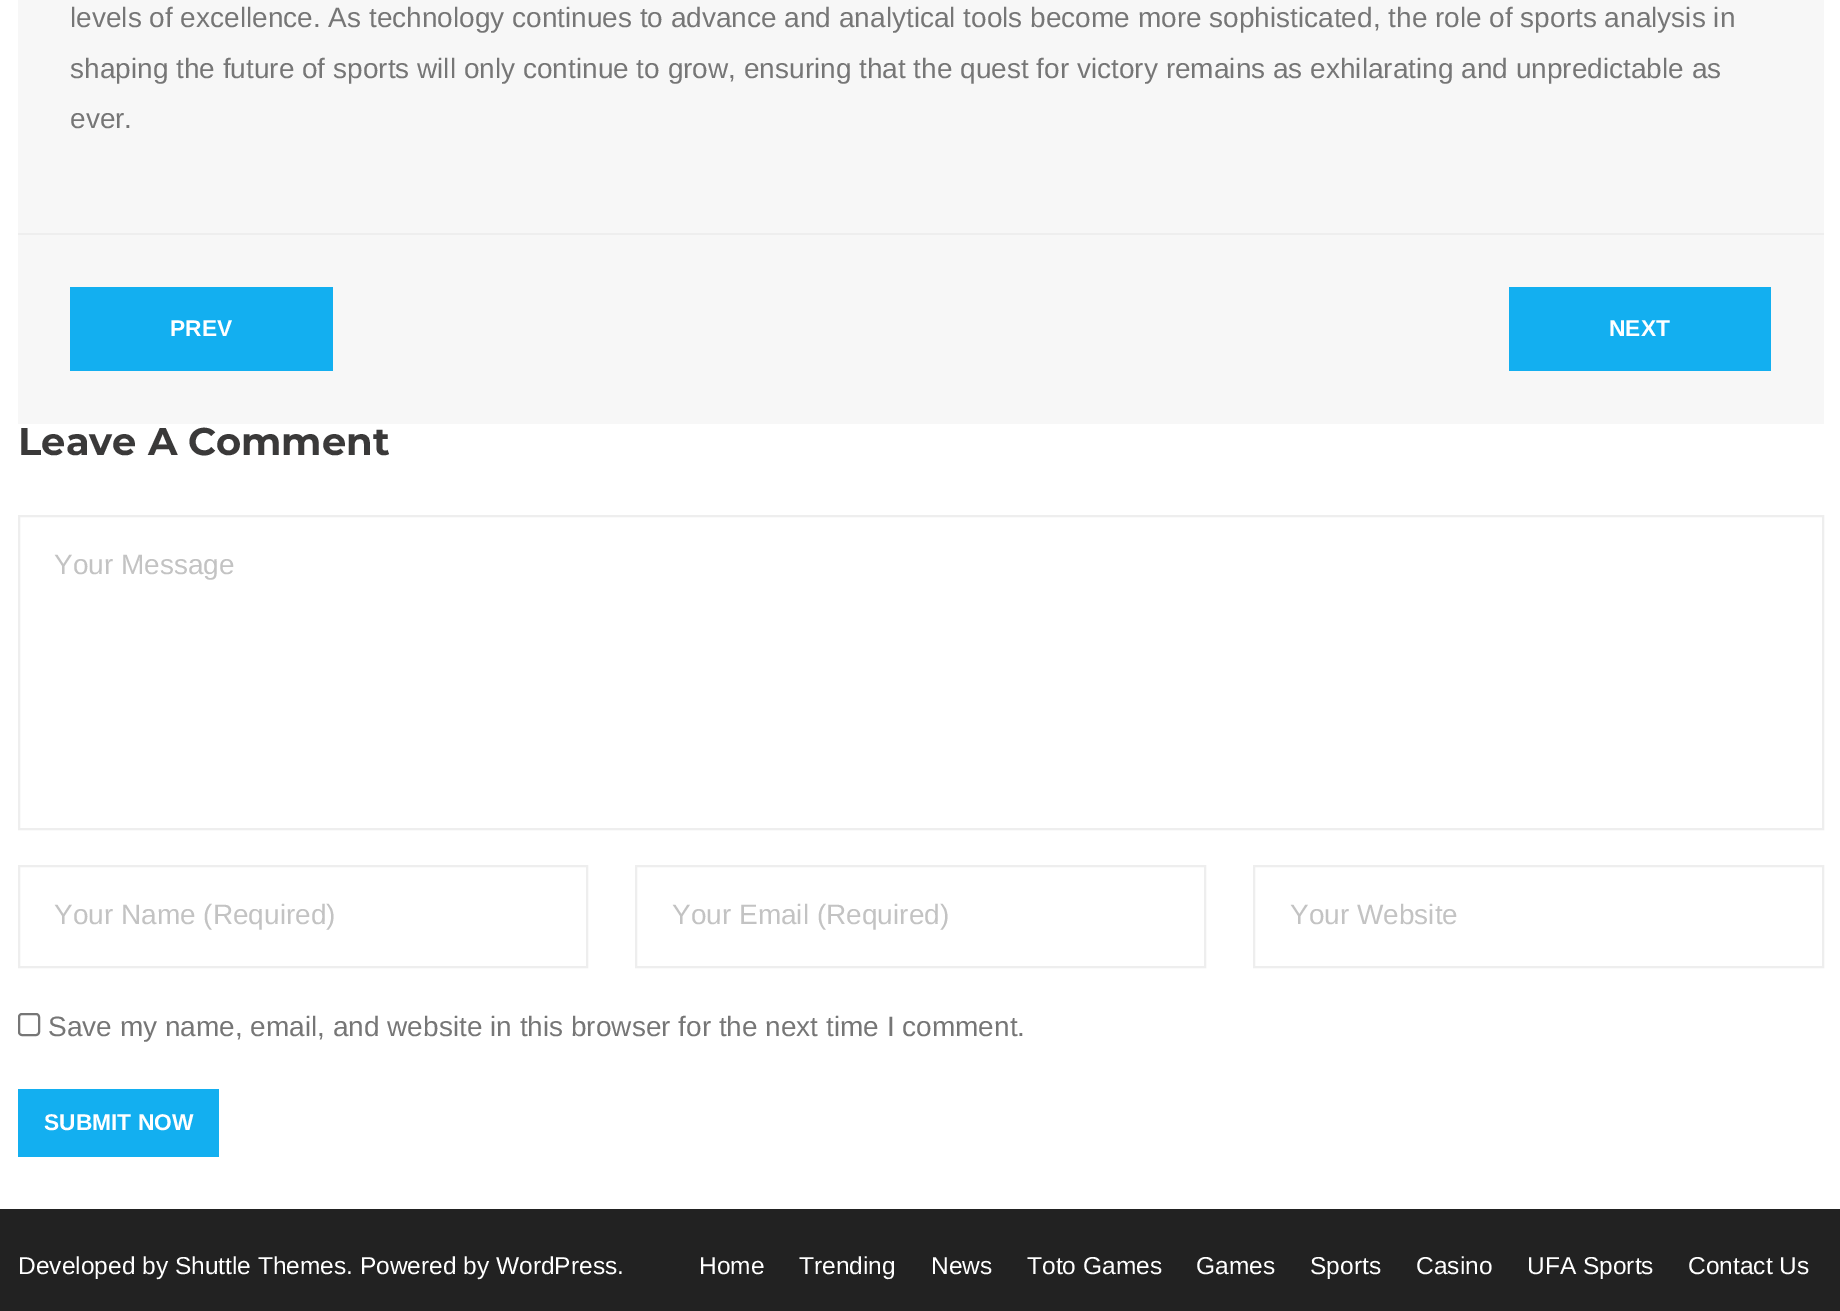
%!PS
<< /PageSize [1840 1311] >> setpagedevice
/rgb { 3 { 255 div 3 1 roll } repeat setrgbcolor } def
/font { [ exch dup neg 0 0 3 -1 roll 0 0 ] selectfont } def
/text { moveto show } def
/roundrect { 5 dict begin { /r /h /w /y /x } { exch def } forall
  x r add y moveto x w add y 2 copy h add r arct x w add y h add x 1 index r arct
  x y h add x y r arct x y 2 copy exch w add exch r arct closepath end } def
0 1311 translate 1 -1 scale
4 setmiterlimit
255 255 255 rgb
0 0 1840 1311 rectfill
247 247 247 rgb
18 0 1806 233 rectfill
18 235 1806 189 rectfill
238 238 238 rgb
18 233 1806 2 rectfill
19 175 240 rgb
70 287 263 84 rectfill
1509 287 262 84 rectfill
238 238 238 rgb
2 setlinewidth
19 516 1804 313 rectstroke
19 866 568 101 rectstroke
636 866 569 101 rectstroke
1254 866 569 101 rectstroke
118 118 118 rgb
19 1014 20 21 3 roundrect stroke
19 175 240 rgb
18 1089 201 68 rectfill
34 34 34 rgb
0 1209 1840 102 rectfill
/LiberationSans-Regular 28 font
118 118 118 rgb
(levels of excellence. As technology continues to advance and analytical tools become more sophisticated, the role of sports analysis in) 70 27 text
(shaping the future of sports will only continue to grow, ensuring that the quest for victory remains as exhilarating and unpredictable as) 70 78 text
(ever.) 70 128 text
/LiberationSans-Bold 22.75 font
255 255 255 rgb
(PREV) 170 336 text
(NEXT) 1609 336 text
/Montserrat-Bold 38.5 font
58 57 57 rgb
(Leave A Comment) 18 455 text
/LiberationSans-Regular 28 font
195 195 195 rgb
(Your Message) 54 574 text
(Your Name \(Required\)) 54 924 text
(Your Email \(Required\)) 672 924 text
(Your Website) 1290 924 text
118 118 118 rgb
(Save my name, email, and website in this browser for the next time I comment.) 48 1036 text
/LiberationSans-Bold 22.75 font
255 255 255 rgb
(SUBMIT NOW) 44 1130 text
/LiberationSans-Regular 24.5 font
(Developed by Shuttle Themes. Powered by WordPress.) 18 1274 text
(Home) 699 1274 text
(Trending) 799 1274 text
(News) 931 1274 text
(Toto Games) 1027 1274 text
(Games) 1196 1274 text
(Sports) 1310 1274 text
(Casino) 1416 1274 text
(UFA Sports) 1527 1274 text
(Contact Us) 1688 1274 text
showpage
